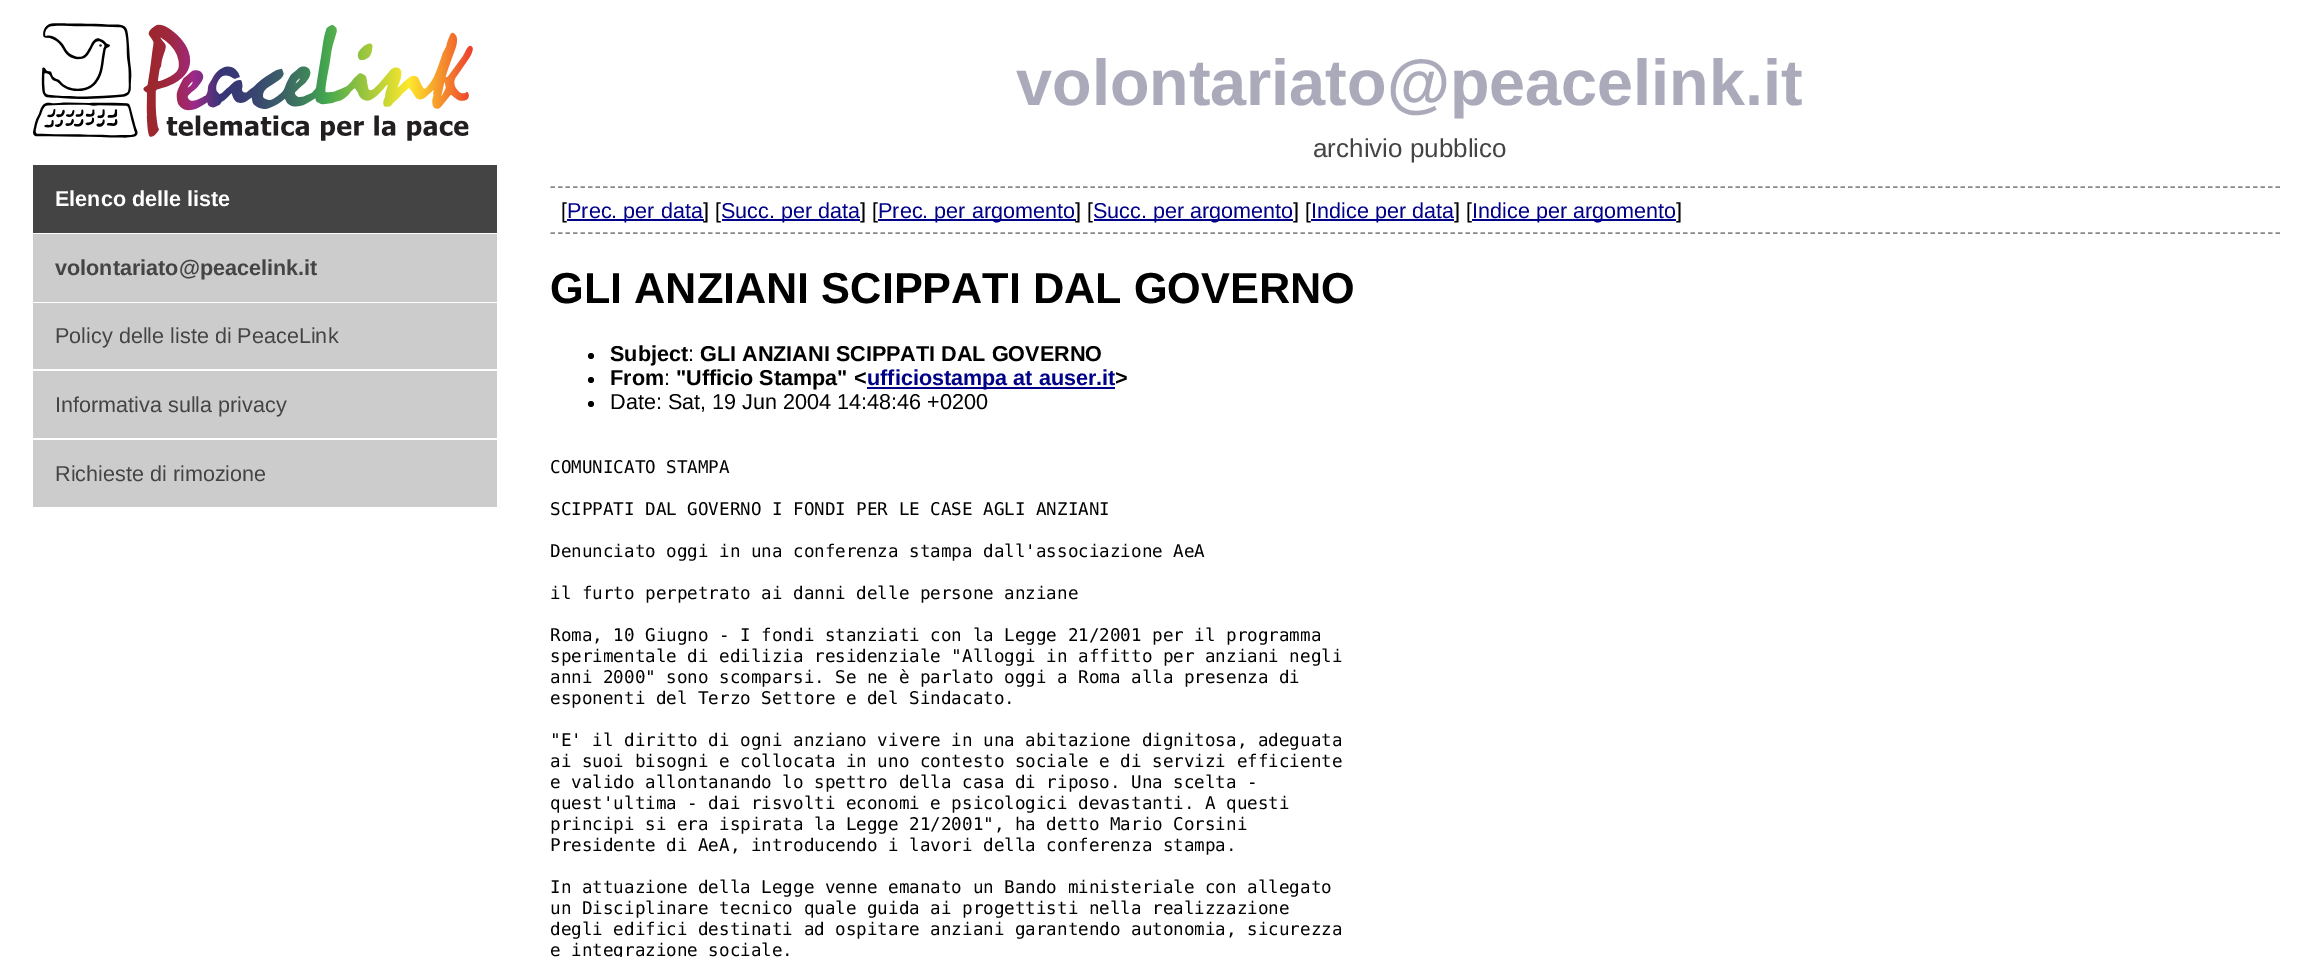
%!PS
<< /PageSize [2314 957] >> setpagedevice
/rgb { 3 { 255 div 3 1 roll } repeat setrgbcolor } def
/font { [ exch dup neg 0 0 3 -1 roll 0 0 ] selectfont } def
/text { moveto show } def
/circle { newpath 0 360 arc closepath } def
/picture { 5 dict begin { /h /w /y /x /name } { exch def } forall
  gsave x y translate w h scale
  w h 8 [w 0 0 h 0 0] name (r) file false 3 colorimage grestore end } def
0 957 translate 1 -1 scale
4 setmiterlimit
255 255 255 rgb
0 0 2314 957 rectfill
(img_01.rgb) 33 23 440 118 picture
68 68 68 rgb
33 165 464 68 rectfill
204 204 204 rgb
33 234 464 68 rectfill
33 303 464 66 rectfill
33 371 464 67 rectfill
33 440 464 67 rectfill
136 136 136 rgb
1.5 setlinewidth
[4.5 3] 0 setdash
550.5 187 moveto 1731 0 rlineto stroke
550.5 233 moveto 1731 0 rlineto stroke
0 0 136 rgb
722 219 138 2 rectfill
878 219 198 2 rectfill
1094 219 199 2 rectfill
1472 219 204 2 rectfill
0 0 0 rgb
591 356 3 circle fill
591 380 3 circle fill
0 0 136 rgb
867 387 248 2 rectfill
0 0 0 rgb
591 404 3 circle fill
/LiberationSans-Bold 64.75 font
170 170 187 rgb
(volontariato@peacelink.it) 1016 105 text
/LiberationSans-Regular 26 font
68 68 68 rgb
(archivio pubblico) 1313 157 text
/LiberationSans-Bold 21.6 font
255 255 255 rgb
(Elenco delle liste) 55 206 text
68 68 68 rgb
(volontariato@peacelink.it) 55 275 text
/LiberationSans-Regular 21.6 font
(Policy delle liste di PeaceLink) 55 343 text
(Informativa sulla privacy) 55 412 text
(Richieste di rimozione) 55 481 text
0 0 0 rgb
([) 561 218 text
0 0 136 rgb
567 219 137 2 rectfill
(Prec. per data) 567 218 text
0 0 0 rgb
(] [) 703 218 text
0 0 136 rgb
(Succ. per data) 721 218 text
0 0 0 rgb
(] [) 860 218 text
0 0 136 rgb
(Prec. per argomento) 878 218 text
0 0 0 rgb
(] [) 1075 218 text
0 0 136 rgb
(Succ. per argomento) 1093 218 text
0 0 0 rgb
(] [) 1293 218 text
0 0 136 rgb
1311 219 143 2 rectfill
(Indice per data) 1311 218 text
0 0 0 rgb
(] [) 1454 218 text
0 0 136 rgb
(Indice per argomento) 1472 218 text
0 0 0 rgb
(]) 1676 218 text
/LiberationSans-Bold 43.25 font
(GLI ANZIANI SCIPPATI DAL GOVERNO) 550 303 text
/LiberationSans-Bold 21.6 font
(Subject) 610 361 text
/LiberationSans-Regular 21.6 font
(:) 688 361 text
/LiberationSans-Bold 21.6 font
(GLI ANZIANI SCIPPATI DAL GOVERNO) 700 361 text
(From) 610 385 text
/LiberationSans-Regular 21.6 font
(:) 664 385 text
/LiberationSans-Bold 21.6 font
("Ufficio Stampa" <) 676 385 text
0 0 136 rgb
(ufficiostampa at auser.it) 867 385 text
0 0 0 rgb
(>) 1115 385 text
/LiberationSans-Regular 21.6 font
(Date: Sat, 19 Jun 2004 14:48:46 +0200) 610 409 text
/DejaVuSansMono-Regular 17.55 font
(COMUNICATO STAMPA) 550 473 text
(SCIPPATI DAL GOVERNO I FONDI PER LE CASE AGLI ANZIANI) 550 515 text
(Denunciato oggi in una conferenza stampa dall'associazione AeA) 550 557 text
(il furto perpetrato ai danni delle persone anziane) 550 599 text
(Roma, 10 Giugno - I fondi stanziati con la Legge 21/2001 per il programma) 550 641 text
(sperimentale di edilizia residenziale "Alloggi in affitto per anziani negli) 550 662 text
(anni 2000" sono scomparsi. Se ne è parlato oggi a Roma alla presenza di) 550 683 text
(esponenti del Terzo Settore e del Sindacato.) 550 704 text
("E' il diritto di ogni anziano vivere in una abitazione dignitosa, adeguata) 550 746 text
(ai suoi bisogni e collocata in uno contesto sociale e di servizi efficiente) 550 767 text
(e valido allontanando lo spettro della casa di riposo. Una scelta -) 550 788 text
(quest'ultima - dai risvolti economi e psicologici devastanti. A questi) 550 809 text
(principi si era ispirata la Legge 21/2001", ha detto Mario Corsini) 550 830 text
(Presidente di AeA, introducendo i lavori della conferenza stampa.) 550 851 text
(In attuazione della Legge venne emanato un Bando ministeriale con allegato) 550 893 text
(un Disciplinare tecnico quale guida ai progettisti nella realizzazione) 550 914 text
(degli edifici destinati ad ospitare anziani garantendo autonomia, sicurezza) 550 935 text
(e integrazione sociale.) 550 956 text
showpage
